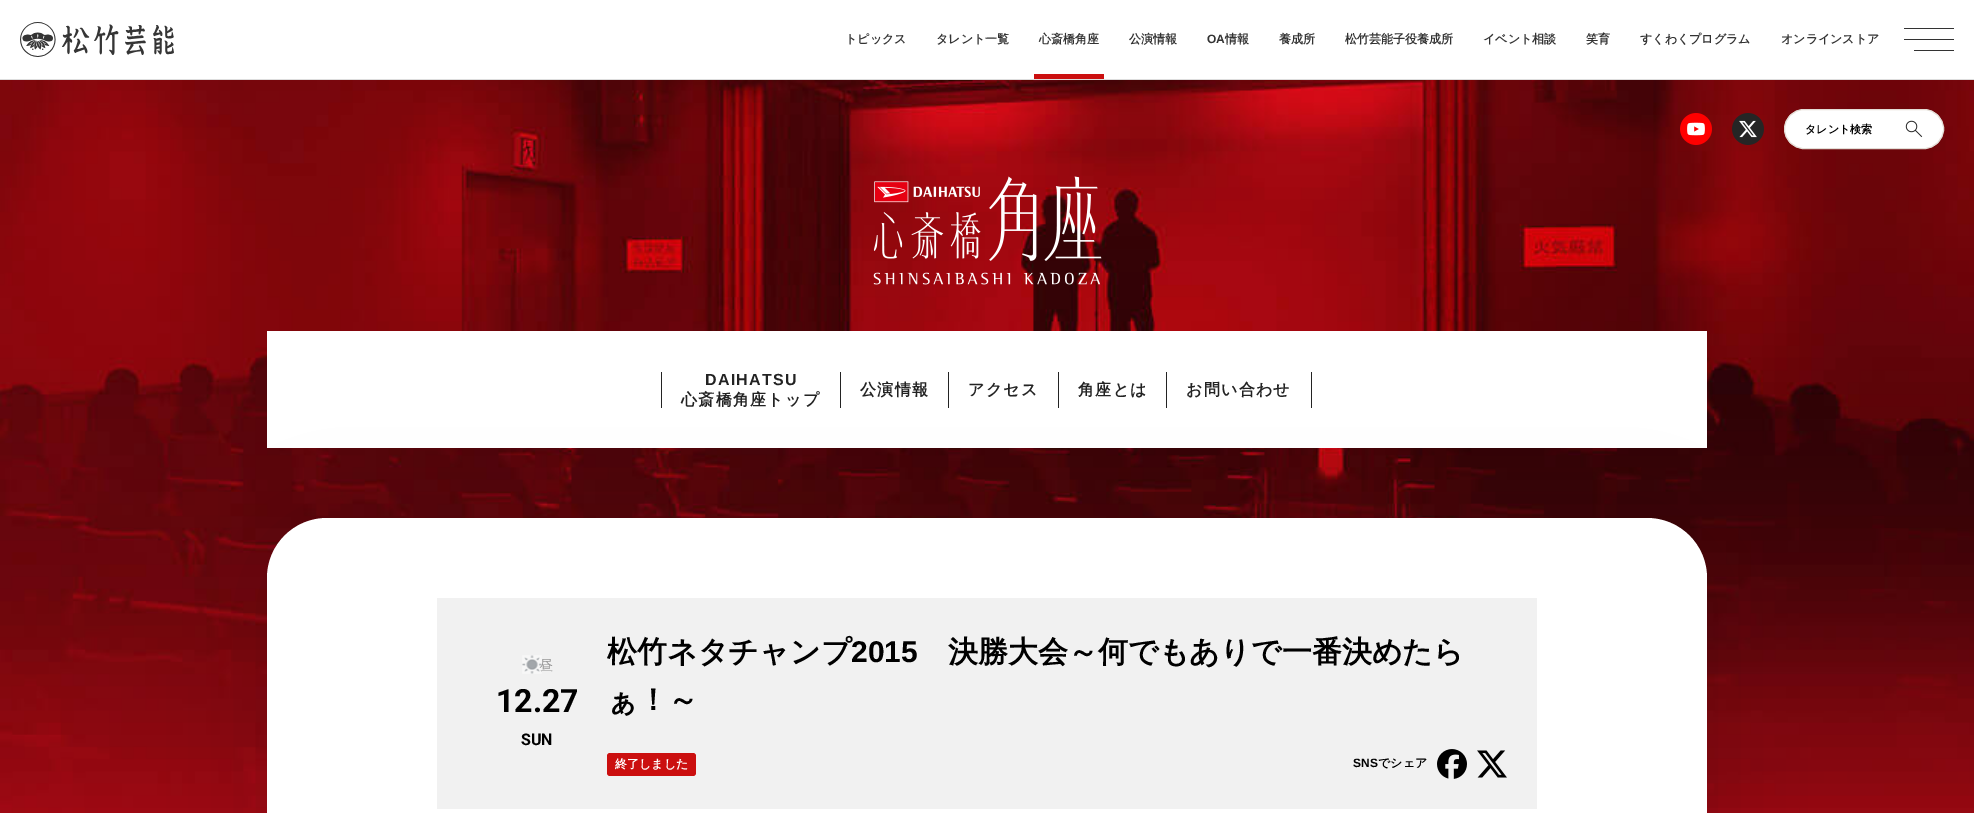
%!PS
<< /PageSize [1974 813] /PageUsesTransparency true >> setpagedevice
/rgb { 3 { 255 div 3 1 roll } repeat setrgbcolor } def
/font { [ exch dup neg 0 0 3 -1 roll 0 0 ] selectfont } def
/text { moveto show } def
/alpha { dup .setfillconstantalpha .setstrokeconstantalpha } def
/roundrect { 5 dict begin { /r /h /w /y /x } { exch def } forall
  x r add y moveto x w add y 2 copy h add r arct x w add y h add x 1 index r arct
  x y h add x y r arct x y 2 copy exch w add exch r arct closepath end } def
/shadow { 12 dict begin { /a /b /q /h /w /y /x } { exch def } forall gsave /was 0 def
  9 -2 -9 { dup b mul 4 div /e exch def 1 sub .425 mul 2.718 exch exp 1 add a .99 .min exch div /now exch def
    1 1 now sub 1 was sub div sub alpha /was now def
    w h .min e 2 mul add 0 gt { x e sub y e sub w e 2 mul add h e 2 mul add
      q e add b .6 mul add w h .min 2 div e add .min 0 .max roundrect fill } if } for grestore end } def
/picture { 5 dict begin { /h /w /y /x /name } { exch def } forall
  gsave x y translate w h scale
  w h 8 [w 0 0 h 0 0] name (r) file false 3 colorimage grestore end } def
0 .pushpdf14devicefilter
0 813 translate 1 -1 scale
4 setmiterlimit
255 255 255 rgb
0 0 1974 813 rectfill
221 221 221 rgb
0 79 1974 1 rectfill
(img_01.rgb) 20 22 154 35 picture
203 15 15 rgb
1034 74 70 5 rectfill
(img_05.rgb) 0 80 1974 733 picture
(img_02.rgb) 1680 113 32 32 picture
(img_03.rgb) 1732 113 32 32 picture
255 255 255 rgb
1784.5 109.5 159 39 19.5 roundrect gsave fill grestore
227 221 214 rgb
stroke
(img_04.rgb) 1905 120 18 18 picture
51 51 51 rgb
1904 28 50 1 rectfill
1904 39 50 1 rectfill
1914 50 40 1 rectfill
(img_06.rgb) 873 176 229 109 picture
255 255 255 rgb
267 331 1440 117 rectfill
35 35 35 rgb
661 372 1 36 rectfill
840 372 1 36 rectfill
948 372 1 36 rectfill
1058 372 1 36 rectfill
1166 372 1 36 rectfill
1311 372 1 36 rectfill
0 0 0 rgb
267 528 1440 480 60 45 0.13 shadow
255 255 255 rgb
267 518 1440 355 60 roundrect fill
241 241 241 rgb
437 598 1100 211 rectfill
(img_07.rgb) 522 655 20 19 picture
203 15 15 rgb
607 753 89 23 3 roundrect fill
(img_08.rgb) 1437 749 30 30 picture
(img_09.rgb) 1477 750 30 28 picture
/WenQuanYiZenHei-Bold 12 font
51 51 51 rgb
(トピックス) 845 43 text
(タレント一覧) 936 43 text
(心斎橋角座) 1039 43 text
(公演情報) 1129 43 text
/LiberationSans-Bold 12 font
(OA) 1207 43 text
/WenQuanYiZenHei-Bold 12 font
(情報) 1225 43 text
(養成所) 1279 43 text
(松竹芸能子役養成所) 1345 43 text
(イベント相談) 1483 43 text
(笑育) 1586 43 text
(すくわくプログラム) 1640 43 text
(オンラインストア) 1781 43 text
/WenQuanYiZenHei-Bold 11 font
0 0 0 rgb
(タレント検索) 1805 133 text
/LiberationSans-Bold 16 font
35 35 35 rgb
705 385 moveto 1.25 0 (DAIHATSU) ashow
/WenQuanYiZenHei-Bold 16 font
681 405 moveto 1.25 0 (心斎橋角座トップ) ashow
860 395 moveto 1.25 0 (公演情報) ashow
968 395 moveto 1.25 0 (アクセス) ashow
1078 395 moveto 1.25 0 (角座とは) ashow
1186 395 moveto 1.25 0 (お問い合わせ) ashow
/WenQuanYiZenHei-Medium 14 font
150 150 150 rgb
(昼) 539 670 text
/Roboto-Bold 32 font
0 0 0 rgb
(12.27) 496 712 text
/Roboto-Bold 16 font
(SUN) 521 745 text
/WenQuanYiZenHei-Bold 30 font
(松竹ネタチャンプ) 607 662 text
/LiberationSans-Bold 30 font
(2015) 851 662 text
/WenQuanYiZenHei-Bold 30 font
(決勝大会～何でもありで一番決めたら) 948 662 text
(ぁ！～) 607 710 text
/WenQuanYiZenHei-Bold 12 font
255 255 255 rgb
(終了しました) 615 768 text
/LiberationSans-Bold 12 font
0 0 0 rgb
(SNS) 1353 767 text
/WenQuanYiZenHei-Bold 12 font
(でシェア) 1378 767 text
.poppdf14devicefilter showpage
